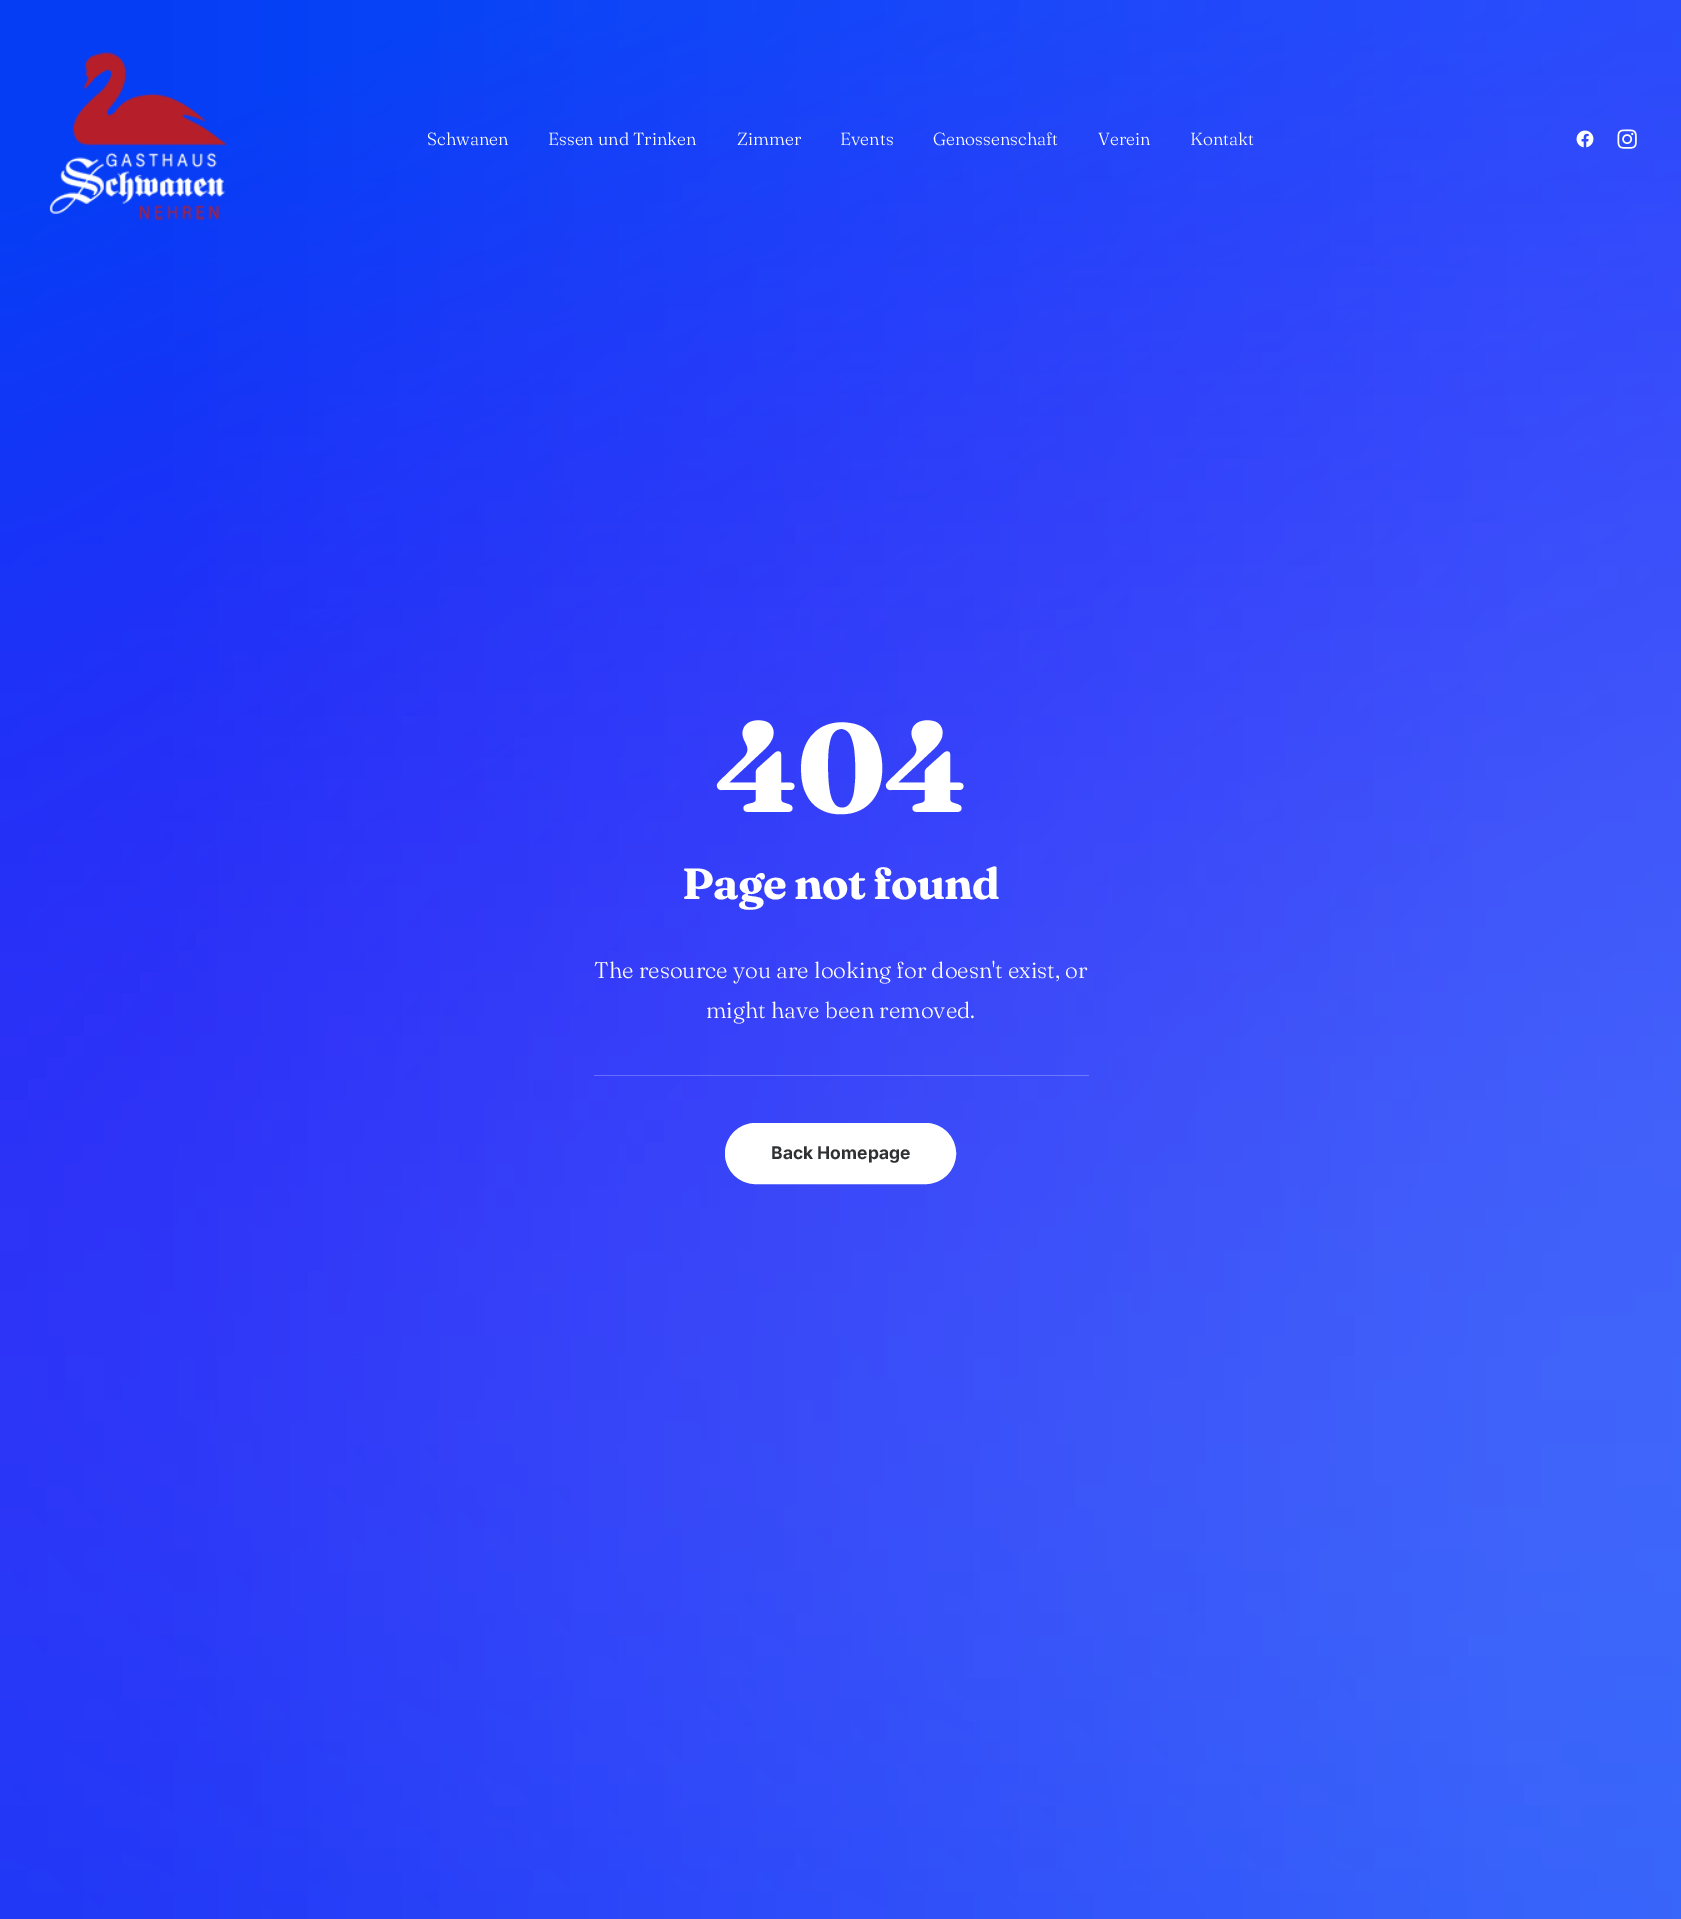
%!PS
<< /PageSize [1681 1919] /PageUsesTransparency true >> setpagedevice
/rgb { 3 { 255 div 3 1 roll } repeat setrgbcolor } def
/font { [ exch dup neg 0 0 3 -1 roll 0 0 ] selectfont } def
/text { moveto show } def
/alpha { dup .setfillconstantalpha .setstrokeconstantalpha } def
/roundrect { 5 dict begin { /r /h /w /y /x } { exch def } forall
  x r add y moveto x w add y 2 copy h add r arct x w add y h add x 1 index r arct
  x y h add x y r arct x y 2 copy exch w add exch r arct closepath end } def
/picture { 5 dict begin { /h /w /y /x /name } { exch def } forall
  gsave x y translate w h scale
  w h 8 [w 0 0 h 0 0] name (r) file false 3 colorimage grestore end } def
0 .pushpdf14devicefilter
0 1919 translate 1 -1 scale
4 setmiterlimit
255 255 255 rgb
0 0 1681 1919 rectfill
gsave 0 0 moveto 1681 0 rlineto 0 1919 rlineto -1681 0 rlineto closepath clip newpath
<< /ShadingType 2 /ColorSpace /DeviceRGB /Coords [1681 960 0 960] /Extend [true true] /Function << /FunctionType 3 /Domain [0 1] /Functions [<< /FunctionType 2 /Domain [0 1] /C0 [0.067 0.361 0.98] /C1 [0.067 0.361 0.98] /N 1 >> << /FunctionType 2 /Domain [0 1] /C0 [0.067 0.361 0.98] /C1 [0.02 0.239 0.961] /N 1 >> << /FunctionType 2 /Domain [0 1] /C0 [0.02 0.239 0.961] /C1 [0.02 0.239 0.961] /N 1 >>] /Bounds [0.09 0.91] /Encode [0 1 0 1 0 1] >> >> shfill grestore
(img_04.rgb) 0 0 1681 1919 picture
(img_01.rgb) 49 52 178 169 picture
(img_02.rgb) 1576 130 18 18 picture
(img_03.rgb) 1617 129 20 20 picture
0.25 alpha
594 1075 495 1 rectfill
1 alpha
725.5 1123.5 230 60 30 roundrect gsave fill grestore
stroke
/Fraunces-Light 17.5 font
(Schwanen) 427 145 text
(Essen und Trinken) 548 145 text
(Zimmer) 737 145 text
(Events) 840 145 text
(Genossenschaft) 933 145 text
(Verein) 1098 145 text
(Kontakt) 1190 145 text
/Fraunces-ExtraBold 125 font
715 812 moveto -2.5 0 (404) ashow
/Fraunces-Bold 43.75 font
682 899 moveto -0.9 0 (Page not found) ashow
/Fraunces-Light 22.5 font
(The resource you are looking for doesn't exist, or) 594 978 text
(might have been removed.) 706 1018 text
/Inter-Bold 17.5 font
48 49 51 rgb
(Back Homepage) 771 1159 text
.poppdf14devicefilter showpage
